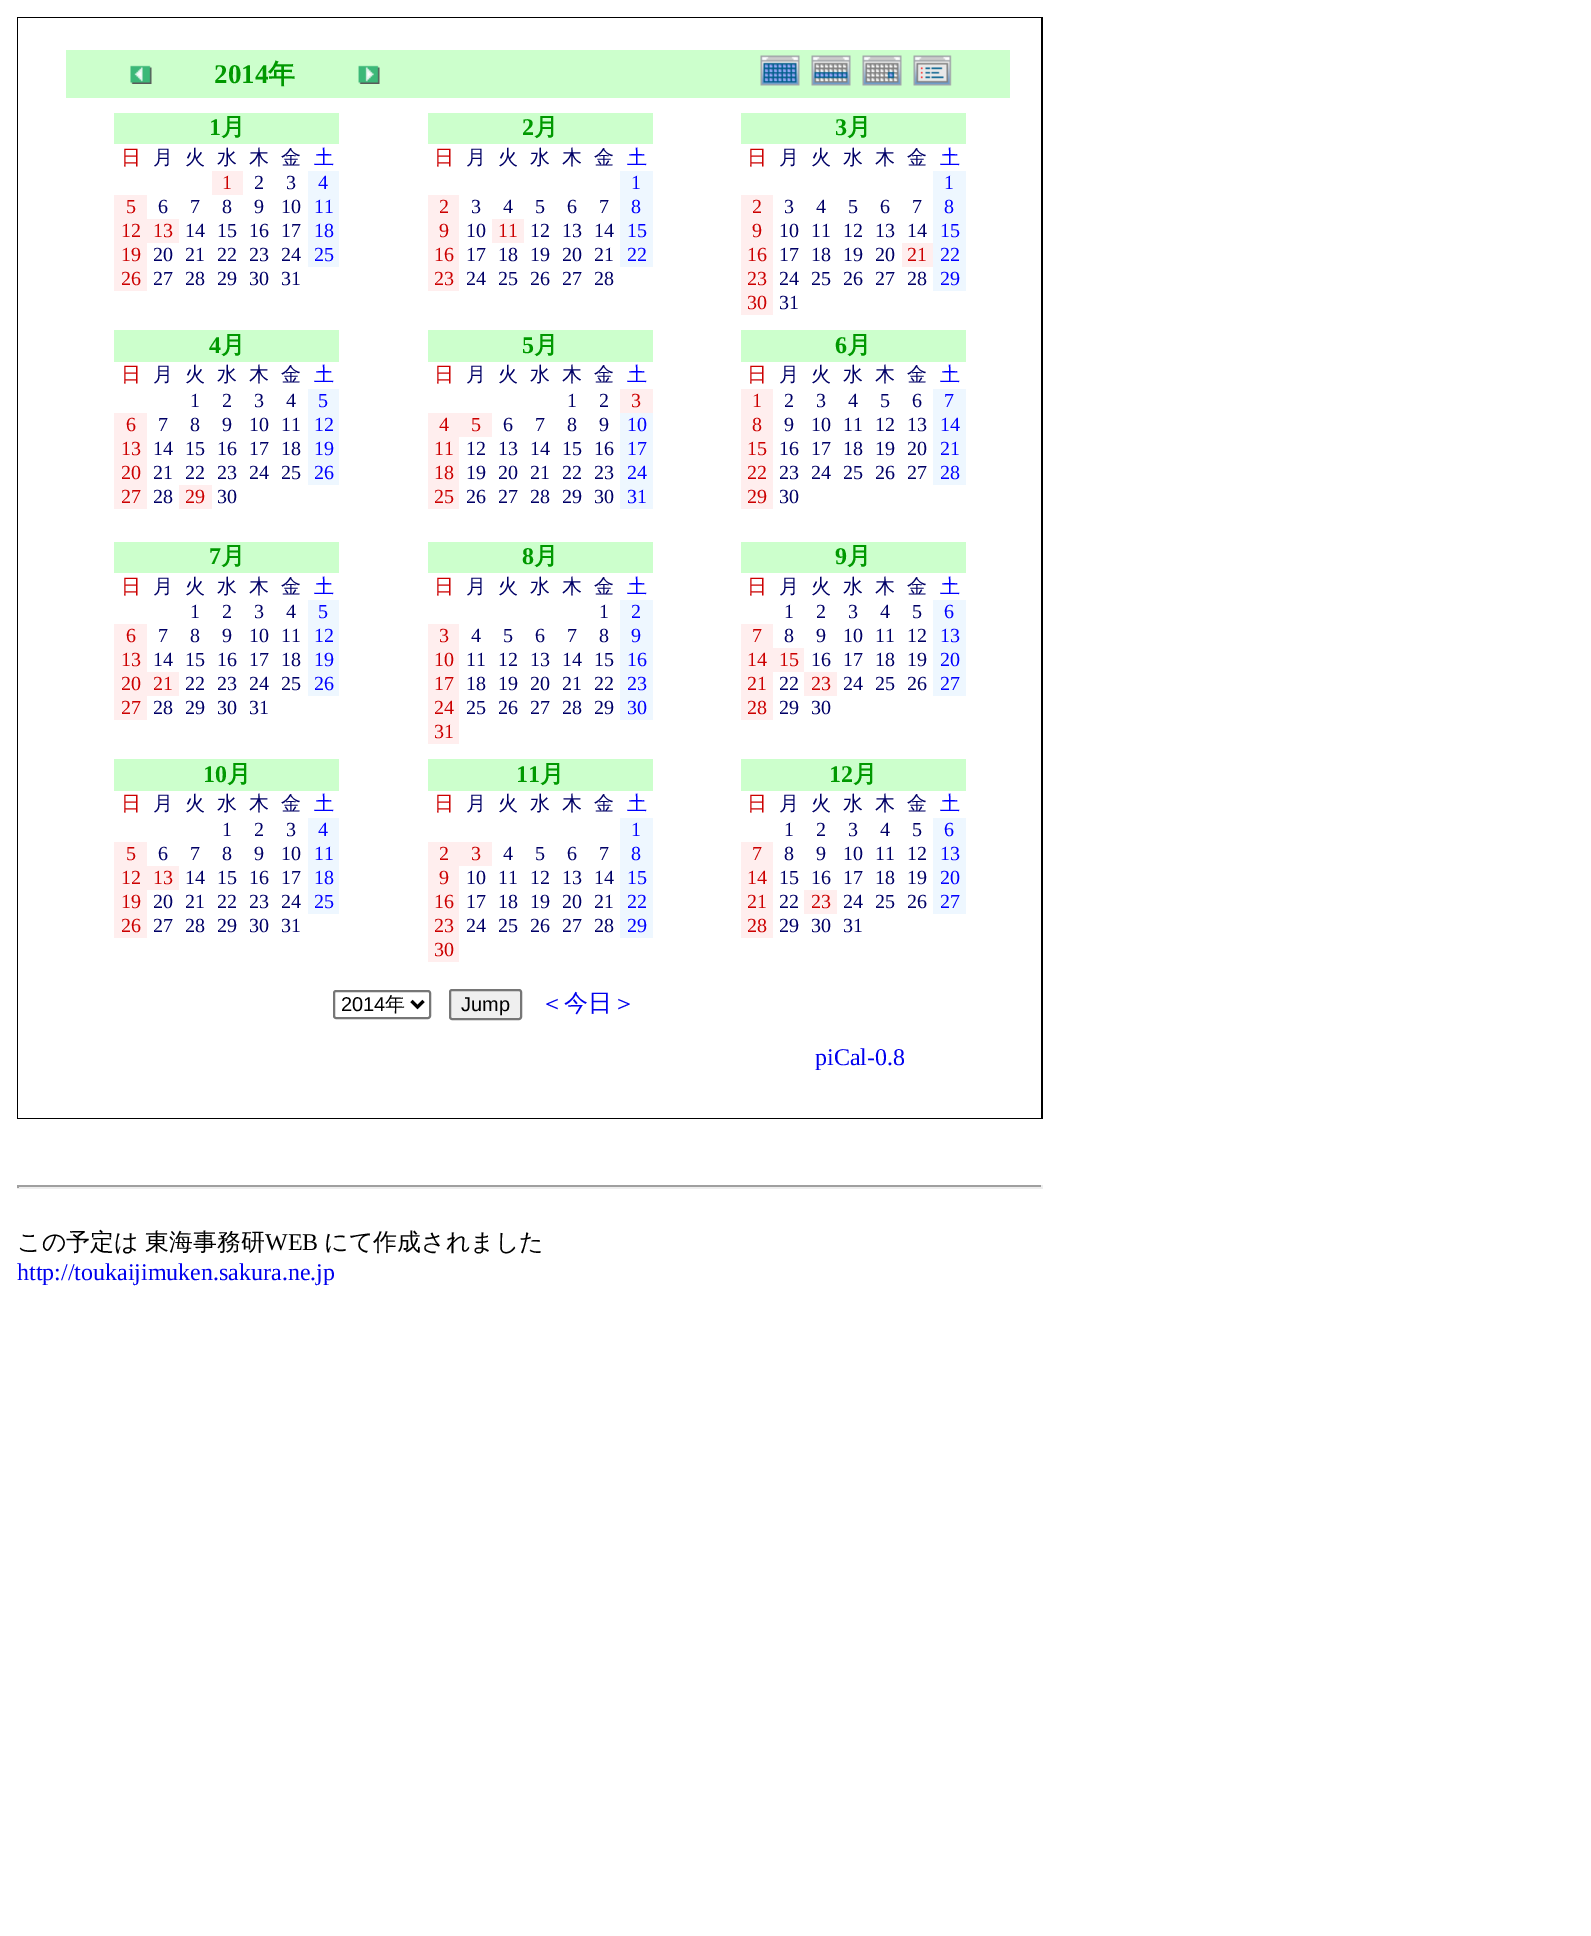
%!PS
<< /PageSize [1591 1936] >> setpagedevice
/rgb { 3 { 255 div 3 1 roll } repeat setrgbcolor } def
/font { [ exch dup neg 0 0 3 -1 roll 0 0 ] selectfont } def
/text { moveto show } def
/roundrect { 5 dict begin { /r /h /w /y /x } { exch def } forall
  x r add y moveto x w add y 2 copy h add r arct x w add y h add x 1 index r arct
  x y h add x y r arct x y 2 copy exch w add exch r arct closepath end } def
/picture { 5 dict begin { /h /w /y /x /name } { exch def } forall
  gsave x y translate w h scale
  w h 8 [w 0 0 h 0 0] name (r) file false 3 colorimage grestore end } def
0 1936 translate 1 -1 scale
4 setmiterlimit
255 255 255 rgb
0 0 1591 1936 rectfill
0 0 0 rgb
17 17 1026 1102 rectfill
255 255 255 rgb
18 18 1023 1100 rectfill
204 255 204 rgb
66 50 944 48 rectfill
(img_01.rgb) 130 65 22 19 picture
(img_02.rgb) 358 65 22 19 picture
(img_03.rgb) 760 55 40 31 picture
(img_04.rgb) 811 55 40 31 picture
(img_05.rgb) 862 55 40 31 picture
(img_06.rgb) 913 55 39 31 picture
114 113 225 31 rectfill
255 238 238 rgb
212 171 31 24 rectfill
238 247 255 rgb
308 171 31 96 rectfill
255 238 238 rgb
114 195 33 96 rectfill
147 219 32 24 rectfill
204 255 204 rgb
428 113 225 31 rectfill
238 247 255 rgb
620 171 33 96 rectfill
255 238 238 rgb
428 195 31 96 rectfill
492 219 32 24 rectfill
204 255 204 rgb
741 113 225 31 rectfill
238 247 255 rgb
933 171 33 120 rectfill
255 238 238 rgb
741 195 32 120 rectfill
902 243 31 24 rectfill
204 255 204 rgb
114 330 225 32 rectfill
238 247 255 rgb
308 389 31 96 rectfill
255 238 238 rgb
114 413 33 96 rectfill
179 485 33 24 rectfill
204 255 204 rgb
428 330 225 32 rectfill
255 238 238 rgb
620 389 33 24 rectfill
428 413 64 24 rectfill
238 247 255 rgb
620 413 33 96 rectfill
255 238 238 rgb
428 437 31 72 rectfill
204 255 204 rgb
741 330 225 32 rectfill
255 238 238 rgb
741 389 32 120 rectfill
238 247 255 rgb
933 389 33 96 rectfill
204 255 204 rgb
114 542 225 31 rectfill
238 247 255 rgb
308 600 31 96 rectfill
255 238 238 rgb
114 624 33 96 rectfill
147 672 32 24 rectfill
204 255 204 rgb
428 542 225 31 rectfill
238 247 255 rgb
620 600 33 120 rectfill
255 238 238 rgb
428 624 31 120 rectfill
204 255 204 rgb
741 542 225 31 rectfill
238 247 255 rgb
933 600 33 96 rectfill
255 238 238 rgb
741 624 32 96 rectfill
773 648 31 24 rectfill
804 672 33 24 rectfill
204 255 204 rgb
114 759 225 32 rectfill
238 247 255 rgb
308 818 31 96 rectfill
255 238 238 rgb
114 842 33 96 rectfill
147 866 32 24 rectfill
204 255 204 rgb
428 759 225 32 rectfill
238 247 255 rgb
620 818 33 120 rectfill
255 238 238 rgb
428 842 64 24 rectfill
428 866 31 96 rectfill
204 255 204 rgb
741 759 225 32 rectfill
238 247 255 rgb
933 818 33 96 rectfill
255 238 238 rgb
741 842 32 96 rectfill
804 890 33 24 rectfill
118 118 118 rgb
2 setlinewidth
334 991 96 27 2 roundrect stroke
0 0 0 rgb
3 setlinewidth
411.5 1001 moveto 6 6 rlineto 6 -6 rlineto stroke
239 239 239 rgb
450 990 71 29 2 roundrect gsave fill grestore
118 118 118 rgb
2 setlinewidth
stroke
159 159 159 rgb
17 1185 1026 2 rectfill
238 238 238 rgb
1041 1185 2 3 rectfill
17 1187 1026 2 rectfill
159 159 159 rgb
17 1185 2 3 rectfill
/LiberationSerif-Bold 27 font
0 153 0 rgb
(2014) 214 83 text
/WenQuanYiZenHei-Bold 27 font
(年) 268 83 text
/LiberationSerif-Bold 24 font
(1) 209 135 text
/WenQuanYiZenHei-Bold 24 font
(月) 221 135 text
/WenQuanYiZenHei-Medium 20 font
204 0 0 rgb
(日) 121 164 text
0 0 102 rgb
(月) 153 164 text
(火) 185 164 text
(水) 217 164 text
(木) 249 164 text
(金) 281 164 text
0 0 255 rgb
(土) 314 164 text
/LiberationSerif-Regular 20 font
204 0 0 rgb
(1) 222 189 text
0 0 102 rgb
(2) 254 189 text
(3) 286 189 text
0 0 255 rgb
(4) 318 189 text
204 0 0 rgb
(5) 126 213 text
0 0 102 rgb
(6) 158 213 text
(7) 190 213 text
(8) 222 213 text
(9) 254 213 text
(10) 281 213 text
0 0 255 rgb
(11) 314 213 text
204 0 0 rgb
(12) 121 237 text
(13) 153 237 text
0 0 102 rgb
(14) 185 237 text
(15) 217 237 text
(16) 249 237 text
(17) 281 237 text
0 0 255 rgb
(18) 314 237 text
204 0 0 rgb
(19) 121 261 text
0 0 102 rgb
(20) 153 261 text
(21) 185 261 text
(22) 217 261 text
(23) 249 261 text
(24) 281 261 text
0 0 255 rgb
(25) 314 261 text
204 0 0 rgb
(26) 121 285 text
0 0 102 rgb
(27) 153 285 text
(28) 185 285 text
(29) 217 285 text
(30) 249 285 text
(31) 281 285 text
/LiberationSerif-Bold 24 font
0 153 0 rgb
(2) 522 135 text
/WenQuanYiZenHei-Bold 24 font
(月) 534 135 text
/WenQuanYiZenHei-Medium 20 font
204 0 0 rgb
(日) 434 164 text
0 0 102 rgb
(月) 466 164 text
(火) 498 164 text
(水) 530 164 text
(木) 562 164 text
(金) 594 164 text
0 0 255 rgb
(土) 627 164 text
/LiberationSerif-Regular 20 font
(1) 631 189 text
204 0 0 rgb
(2) 439 213 text
0 0 102 rgb
(3) 471 213 text
(4) 503 213 text
(5) 535 213 text
(6) 567 213 text
(7) 599 213 text
0 0 255 rgb
(8) 631 213 text
204 0 0 rgb
(9) 439 237 text
0 0 102 rgb
(10) 466 237 text
204 0 0 rgb
(11) 498 237 text
0 0 102 rgb
(12) 530 237 text
(13) 562 237 text
(14) 594 237 text
0 0 255 rgb
(15) 627 237 text
204 0 0 rgb
(16) 434 261 text
0 0 102 rgb
(17) 466 261 text
(18) 498 261 text
(19) 530 261 text
(20) 562 261 text
(21) 594 261 text
0 0 255 rgb
(22) 627 261 text
204 0 0 rgb
(23) 434 285 text
0 0 102 rgb
(24) 466 285 text
(25) 498 285 text
(26) 530 285 text
(27) 562 285 text
(28) 594 285 text
/LiberationSerif-Bold 24 font
0 153 0 rgb
(3) 835 135 text
/WenQuanYiZenHei-Bold 24 font
(月) 847 135 text
/WenQuanYiZenHei-Medium 20 font
204 0 0 rgb
(日) 747 164 text
0 0 102 rgb
(月) 779 164 text
(火) 811 164 text
(水) 843 164 text
(木) 875 164 text
(金) 907 164 text
0 0 255 rgb
(土) 940 164 text
/LiberationSerif-Regular 20 font
(1) 944 189 text
204 0 0 rgb
(2) 752 213 text
0 0 102 rgb
(3) 784 213 text
(4) 816 213 text
(5) 848 213 text
(6) 880 213 text
(7) 912 213 text
0 0 255 rgb
(8) 944 213 text
204 0 0 rgb
(9) 752 237 text
0 0 102 rgb
(10) 779 237 text
(11) 811 237 text
(12) 843 237 text
(13) 875 237 text
(14) 907 237 text
0 0 255 rgb
(15) 940 237 text
204 0 0 rgb
(16) 747 261 text
0 0 102 rgb
(17) 779 261 text
(18) 811 261 text
(19) 843 261 text
(20) 875 261 text
204 0 0 rgb
(21) 907 261 text
0 0 255 rgb
(22) 940 261 text
204 0 0 rgb
(23) 747 285 text
0 0 102 rgb
(24) 779 285 text
(25) 811 285 text
(26) 843 285 text
(27) 875 285 text
(28) 907 285 text
0 0 255 rgb
(29) 940 285 text
204 0 0 rgb
(30) 747 309 text
0 0 102 rgb
(31) 779 309 text
/LiberationSerif-Bold 24 font
0 153 0 rgb
(4) 209 353 text
/WenQuanYiZenHei-Bold 24 font
(月) 221 353 text
/WenQuanYiZenHei-Medium 20 font
204 0 0 rgb
(日) 121 381 text
0 0 102 rgb
(月) 153 381 text
(火) 185 381 text
(水) 217 381 text
(木) 249 381 text
(金) 281 381 text
0 0 255 rgb
(土) 314 381 text
/LiberationSerif-Regular 20 font
0 0 102 rgb
(1) 190 407 text
(2) 222 407 text
(3) 254 407 text
(4) 286 407 text
0 0 255 rgb
(5) 318 407 text
204 0 0 rgb
(6) 126 431 text
0 0 102 rgb
(7) 158 431 text
(8) 190 431 text
(9) 222 431 text
(10) 249 431 text
(11) 281 431 text
0 0 255 rgb
(12) 314 431 text
204 0 0 rgb
(13) 121 455 text
0 0 102 rgb
(14) 153 455 text
(15) 185 455 text
(16) 217 455 text
(17) 249 455 text
(18) 281 455 text
0 0 255 rgb
(19) 314 455 text
204 0 0 rgb
(20) 121 479 text
0 0 102 rgb
(21) 153 479 text
(22) 185 479 text
(23) 217 479 text
(24) 249 479 text
(25) 281 479 text
0 0 255 rgb
(26) 314 479 text
204 0 0 rgb
(27) 121 503 text
0 0 102 rgb
(28) 153 503 text
204 0 0 rgb
(29) 185 503 text
0 0 102 rgb
(30) 217 503 text
/LiberationSerif-Bold 24 font
0 153 0 rgb
(5) 522 353 text
/WenQuanYiZenHei-Bold 24 font
(月) 534 353 text
/WenQuanYiZenHei-Medium 20 font
204 0 0 rgb
(日) 434 381 text
0 0 102 rgb
(月) 466 381 text
(火) 498 381 text
(水) 530 381 text
(木) 562 381 text
(金) 594 381 text
0 0 255 rgb
(土) 627 381 text
/LiberationSerif-Regular 20 font
0 0 102 rgb
(1) 567 407 text
(2) 599 407 text
204 0 0 rgb
(3) 631 407 text
(4) 439 431 text
(5) 471 431 text
0 0 102 rgb
(6) 503 431 text
(7) 535 431 text
(8) 567 431 text
(9) 599 431 text
0 0 255 rgb
(10) 627 431 text
204 0 0 rgb
(11) 434 455 text
0 0 102 rgb
(12) 466 455 text
(13) 498 455 text
(14) 530 455 text
(15) 562 455 text
(16) 594 455 text
0 0 255 rgb
(17) 627 455 text
204 0 0 rgb
(18) 434 479 text
0 0 102 rgb
(19) 466 479 text
(20) 498 479 text
(21) 530 479 text
(22) 562 479 text
(23) 594 479 text
0 0 255 rgb
(24) 627 479 text
204 0 0 rgb
(25) 434 503 text
0 0 102 rgb
(26) 466 503 text
(27) 498 503 text
(28) 530 503 text
(29) 562 503 text
(30) 594 503 text
0 0 255 rgb
(31) 627 503 text
/LiberationSerif-Bold 24 font
0 153 0 rgb
(6) 835 353 text
/WenQuanYiZenHei-Bold 24 font
(月) 847 353 text
/WenQuanYiZenHei-Medium 20 font
204 0 0 rgb
(日) 747 381 text
0 0 102 rgb
(月) 779 381 text
(火) 811 381 text
(水) 843 381 text
(木) 875 381 text
(金) 907 381 text
0 0 255 rgb
(土) 940 381 text
/LiberationSerif-Regular 20 font
204 0 0 rgb
(1) 752 407 text
0 0 102 rgb
(2) 784 407 text
(3) 816 407 text
(4) 848 407 text
(5) 880 407 text
(6) 912 407 text
0 0 255 rgb
(7) 944 407 text
204 0 0 rgb
(8) 752 431 text
0 0 102 rgb
(9) 784 431 text
(10) 811 431 text
(11) 843 431 text
(12) 875 431 text
(13) 907 431 text
0 0 255 rgb
(14) 940 431 text
204 0 0 rgb
(15) 747 455 text
0 0 102 rgb
(16) 779 455 text
(17) 811 455 text
(18) 843 455 text
(19) 875 455 text
(20) 907 455 text
0 0 255 rgb
(21) 940 455 text
204 0 0 rgb
(22) 747 479 text
0 0 102 rgb
(23) 779 479 text
(24) 811 479 text
(25) 843 479 text
(26) 875 479 text
(27) 907 479 text
0 0 255 rgb
(28) 940 479 text
204 0 0 rgb
(29) 747 503 text
0 0 102 rgb
(30) 779 503 text
/LiberationSerif-Bold 24 font
0 153 0 rgb
(7) 209 564 text
/WenQuanYiZenHei-Bold 24 font
(月) 221 564 text
/WenQuanYiZenHei-Medium 20 font
204 0 0 rgb
(日) 121 593 text
0 0 102 rgb
(月) 153 593 text
(火) 185 593 text
(水) 217 593 text
(木) 249 593 text
(金) 281 593 text
0 0 255 rgb
(土) 314 593 text
/LiberationSerif-Regular 20 font
0 0 102 rgb
(1) 190 618 text
(2) 222 618 text
(3) 254 618 text
(4) 286 618 text
0 0 255 rgb
(5) 318 618 text
204 0 0 rgb
(6) 126 642 text
0 0 102 rgb
(7) 158 642 text
(8) 190 642 text
(9) 222 642 text
(10) 249 642 text
(11) 281 642 text
0 0 255 rgb
(12) 314 642 text
204 0 0 rgb
(13) 121 666 text
0 0 102 rgb
(14) 153 666 text
(15) 185 666 text
(16) 217 666 text
(17) 249 666 text
(18) 281 666 text
0 0 255 rgb
(19) 314 666 text
204 0 0 rgb
(20) 121 690 text
(21) 153 690 text
0 0 102 rgb
(22) 185 690 text
(23) 217 690 text
(24) 249 690 text
(25) 281 690 text
0 0 255 rgb
(26) 314 690 text
204 0 0 rgb
(27) 121 714 text
0 0 102 rgb
(28) 153 714 text
(29) 185 714 text
(30) 217 714 text
(31) 249 714 text
/LiberationSerif-Bold 24 font
0 153 0 rgb
(8) 522 564 text
/WenQuanYiZenHei-Bold 24 font
(月) 534 564 text
/WenQuanYiZenHei-Medium 20 font
204 0 0 rgb
(日) 434 593 text
0 0 102 rgb
(月) 466 593 text
(火) 498 593 text
(水) 530 593 text
(木) 562 593 text
(金) 594 593 text
0 0 255 rgb
(土) 627 593 text
/LiberationSerif-Regular 20 font
0 0 102 rgb
(1) 599 618 text
0 0 255 rgb
(2) 631 618 text
204 0 0 rgb
(3) 439 642 text
0 0 102 rgb
(4) 471 642 text
(5) 503 642 text
(6) 535 642 text
(7) 567 642 text
(8) 599 642 text
0 0 255 rgb
(9) 631 642 text
204 0 0 rgb
(10) 434 666 text
0 0 102 rgb
(11) 466 666 text
(12) 498 666 text
(13) 530 666 text
(14) 562 666 text
(15) 594 666 text
0 0 255 rgb
(16) 627 666 text
204 0 0 rgb
(17) 434 690 text
0 0 102 rgb
(18) 466 690 text
(19) 498 690 text
(20) 530 690 text
(21) 562 690 text
(22) 594 690 text
0 0 255 rgb
(23) 627 690 text
204 0 0 rgb
(24) 434 714 text
0 0 102 rgb
(25) 466 714 text
(26) 498 714 text
(27) 530 714 text
(28) 562 714 text
(29) 594 714 text
0 0 255 rgb
(30) 627 714 text
204 0 0 rgb
(31) 434 738 text
/LiberationSerif-Bold 24 font
0 153 0 rgb
(9) 835 564 text
/WenQuanYiZenHei-Bold 24 font
(月) 847 564 text
/WenQuanYiZenHei-Medium 20 font
204 0 0 rgb
(日) 747 593 text
0 0 102 rgb
(月) 779 593 text
(火) 811 593 text
(水) 843 593 text
(木) 875 593 text
(金) 907 593 text
0 0 255 rgb
(土) 940 593 text
/LiberationSerif-Regular 20 font
0 0 102 rgb
(1) 784 618 text
(2) 816 618 text
(3) 848 618 text
(4) 880 618 text
(5) 912 618 text
0 0 255 rgb
(6) 944 618 text
204 0 0 rgb
(7) 752 642 text
0 0 102 rgb
(8) 784 642 text
(9) 816 642 text
(10) 843 642 text
(11) 875 642 text
(12) 907 642 text
0 0 255 rgb
(13) 940 642 text
204 0 0 rgb
(14) 747 666 text
(15) 779 666 text
0 0 102 rgb
(16) 811 666 text
(17) 843 666 text
(18) 875 666 text
(19) 907 666 text
0 0 255 rgb
(20) 940 666 text
204 0 0 rgb
(21) 747 690 text
0 0 102 rgb
(22) 779 690 text
204 0 0 rgb
(23) 811 690 text
0 0 102 rgb
(24) 843 690 text
(25) 875 690 text
(26) 907 690 text
0 0 255 rgb
(27) 940 690 text
204 0 0 rgb
(28) 747 714 text
0 0 102 rgb
(29) 779 714 text
(30) 811 714 text
/LiberationSerif-Bold 24 font
0 153 0 rgb
(10) 203 782 text
/WenQuanYiZenHei-Bold 24 font
(月) 227 782 text
/WenQuanYiZenHei-Medium 20 font
204 0 0 rgb
(日) 121 810 text
0 0 102 rgb
(月) 153 810 text
(火) 185 810 text
(水) 217 810 text
(木) 249 810 text
(金) 281 810 text
0 0 255 rgb
(土) 314 810 text
/LiberationSerif-Regular 20 font
0 0 102 rgb
(1) 222 836 text
(2) 254 836 text
(3) 286 836 text
0 0 255 rgb
(4) 318 836 text
204 0 0 rgb
(5) 126 860 text
0 0 102 rgb
(6) 158 860 text
(7) 190 860 text
(8) 222 860 text
(9) 254 860 text
(10) 281 860 text
0 0 255 rgb
(11) 314 860 text
204 0 0 rgb
(12) 121 884 text
(13) 153 884 text
0 0 102 rgb
(14) 185 884 text
(15) 217 884 text
(16) 249 884 text
(17) 281 884 text
0 0 255 rgb
(18) 314 884 text
204 0 0 rgb
(19) 121 908 text
0 0 102 rgb
(20) 153 908 text
(21) 185 908 text
(22) 217 908 text
(23) 249 908 text
(24) 281 908 text
0 0 255 rgb
(25) 314 908 text
204 0 0 rgb
(26) 121 932 text
0 0 102 rgb
(27) 153 932 text
(28) 185 932 text
(29) 217 932 text
(30) 249 932 text
(31) 281 932 text
/LiberationSerif-Bold 24 font
0 153 0 rgb
(11) 516 782 text
/WenQuanYiZenHei-Bold 24 font
(月) 540 782 text
/WenQuanYiZenHei-Medium 20 font
204 0 0 rgb
(日) 434 810 text
0 0 102 rgb
(月) 466 810 text
(火) 498 810 text
(水) 530 810 text
(木) 562 810 text
(金) 594 810 text
0 0 255 rgb
(土) 627 810 text
/LiberationSerif-Regular 20 font
(1) 631 836 text
204 0 0 rgb
(2) 439 860 text
(3) 471 860 text
0 0 102 rgb
(4) 503 860 text
(5) 535 860 text
(6) 567 860 text
(7) 599 860 text
0 0 255 rgb
(8) 631 860 text
204 0 0 rgb
(9) 439 884 text
0 0 102 rgb
(10) 466 884 text
(11) 498 884 text
(12) 530 884 text
(13) 562 884 text
(14) 594 884 text
0 0 255 rgb
(15) 627 884 text
204 0 0 rgb
(16) 434 908 text
0 0 102 rgb
(17) 466 908 text
(18) 498 908 text
(19) 530 908 text
(20) 562 908 text
(21) 594 908 text
0 0 255 rgb
(22) 627 908 text
204 0 0 rgb
(23) 434 932 text
0 0 102 rgb
(24) 466 932 text
(25) 498 932 text
(26) 530 932 text
(27) 562 932 text
(28) 594 932 text
0 0 255 rgb
(29) 627 932 text
204 0 0 rgb
(30) 434 956 text
/LiberationSerif-Bold 24 font
0 153 0 rgb
(12) 829 782 text
/WenQuanYiZenHei-Bold 24 font
(月) 853 782 text
/WenQuanYiZenHei-Medium 20 font
204 0 0 rgb
(日) 747 810 text
0 0 102 rgb
(月) 779 810 text
(火) 811 810 text
(水) 843 810 text
(木) 875 810 text
(金) 907 810 text
0 0 255 rgb
(土) 940 810 text
/LiberationSerif-Regular 20 font
0 0 102 rgb
(1) 784 836 text
(2) 816 836 text
(3) 848 836 text
(4) 880 836 text
(5) 912 836 text
0 0 255 rgb
(6) 944 836 text
204 0 0 rgb
(7) 752 860 text
0 0 102 rgb
(8) 784 860 text
(9) 816 860 text
(10) 843 860 text
(11) 875 860 text
(12) 907 860 text
0 0 255 rgb
(13) 940 860 text
204 0 0 rgb
(14) 747 884 text
0 0 102 rgb
(15) 779 884 text
(16) 811 884 text
(17) 843 884 text
(18) 875 884 text
(19) 907 884 text
0 0 255 rgb
(20) 940 884 text
204 0 0 rgb
(21) 747 908 text
0 0 102 rgb
(22) 779 908 text
204 0 0 rgb
(23) 811 908 text
0 0 102 rgb
(24) 843 908 text
(25) 875 908 text
(26) 907 908 text
0 0 255 rgb
(27) 940 908 text
204 0 0 rgb
(28) 747 932 text
0 0 102 rgb
(29) 779 932 text
(30) 811 932 text
(31) 843 932 text
/LiberationSans-Regular 20 font
0 0 0 rgb
(2014) 341 1011 text
/WenQuanYiZenHei-Medium 20 font
(年) 385 1011 text
/LiberationSans-Regular 20 font
(Jump) 461 1011 text
/WenQuanYiZenHei-Medium 24 font
0 0 238 rgb
(＜今日＞) 540 1011 text
/LiberationSerif-Regular 24 font
(piCal-0.8) 815 1065 text
/WenQuanYiZenHei-Medium 24 font
0 0 0 rgb
17 1250 moveto -1 0 32 (この予定は 東海事務研) widthshow
/LiberationSerif-Regular 24 font
(WEB) 265 1250 text
/WenQuanYiZenHei-Medium 24 font
(にて作成されました) 324 1250 text
/LiberationSerif-Regular 24 font
0 0 238 rgb
(http://toukaijimuken.sakura.ne.jp) 17 1280 text
showpage
